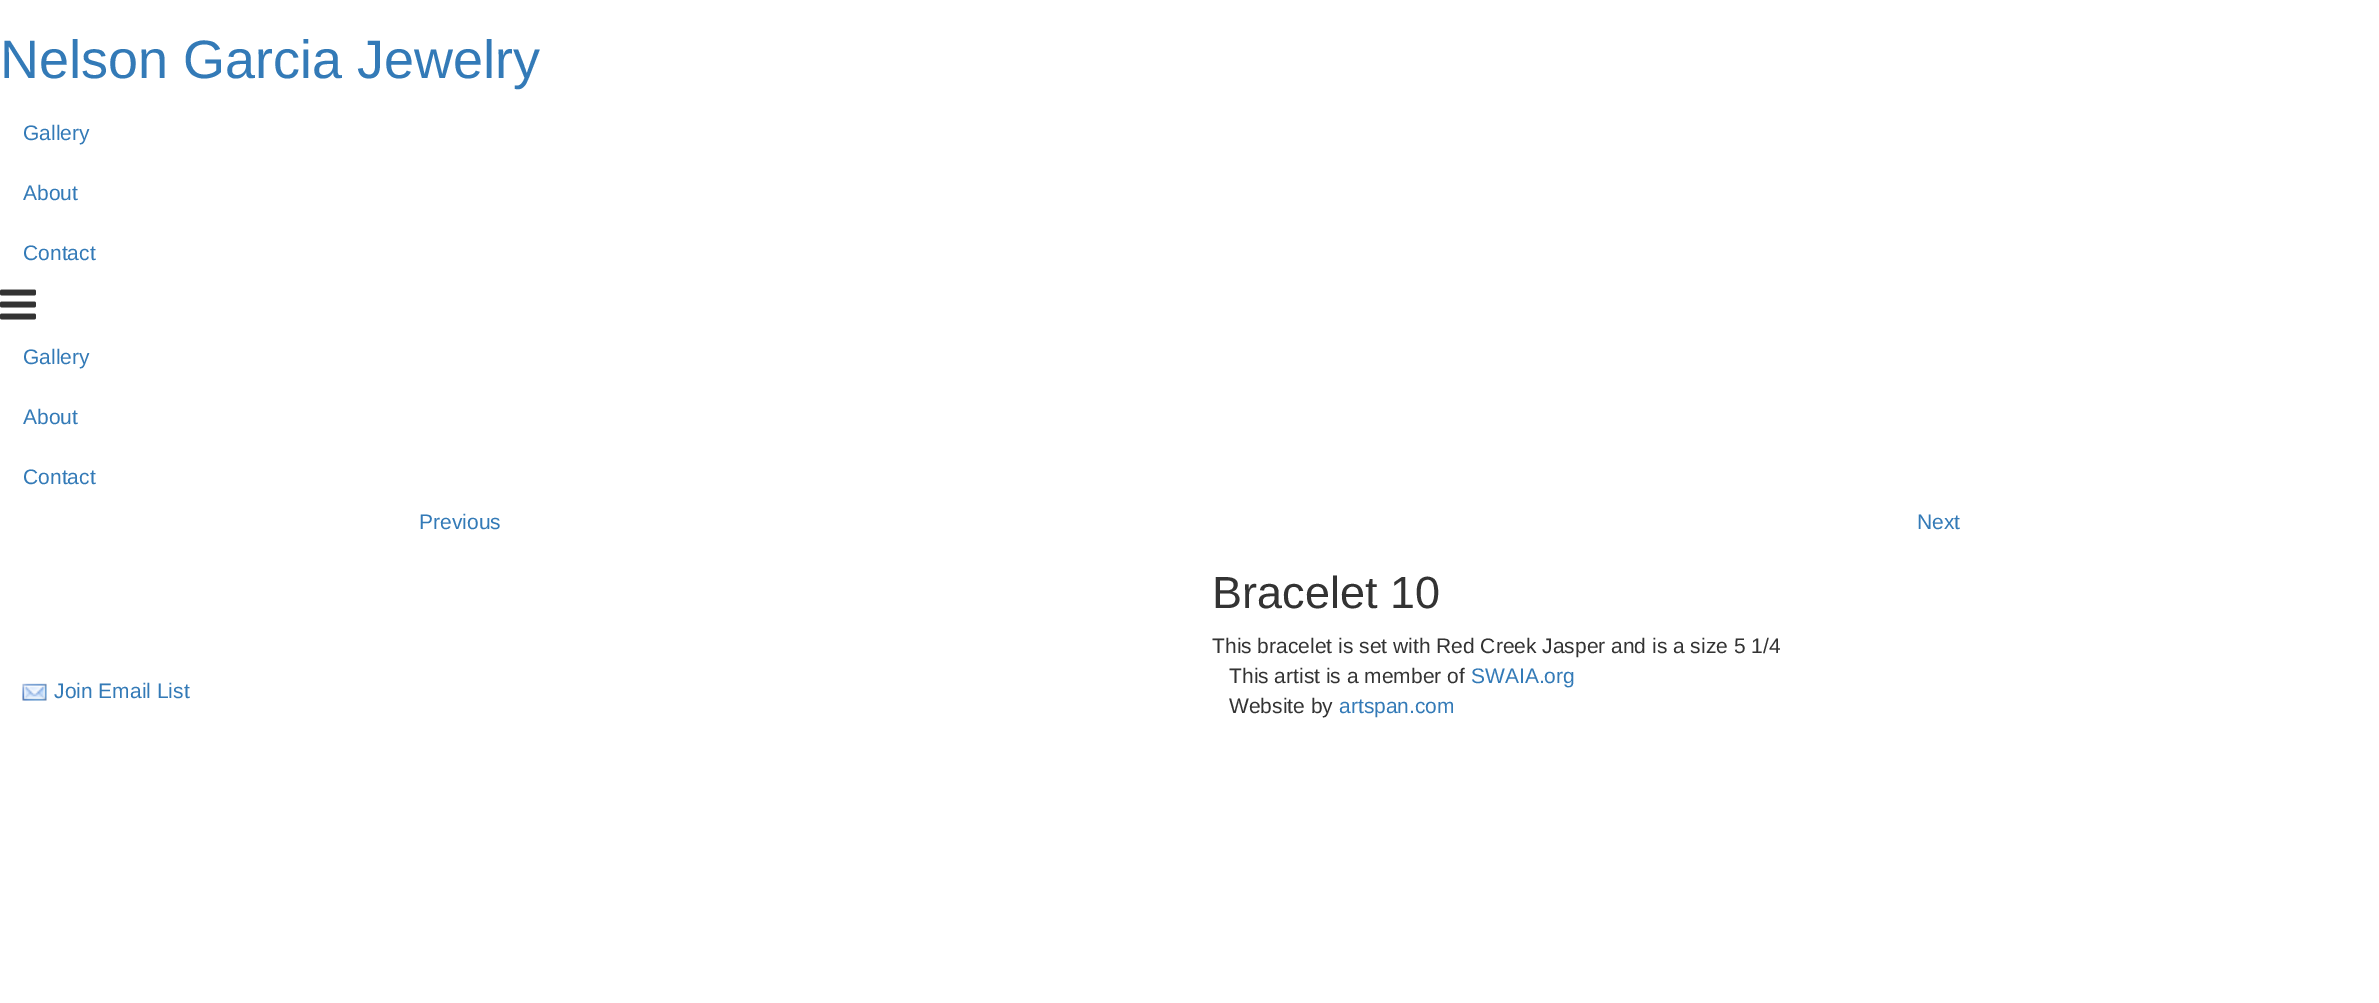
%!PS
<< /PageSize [2379 1003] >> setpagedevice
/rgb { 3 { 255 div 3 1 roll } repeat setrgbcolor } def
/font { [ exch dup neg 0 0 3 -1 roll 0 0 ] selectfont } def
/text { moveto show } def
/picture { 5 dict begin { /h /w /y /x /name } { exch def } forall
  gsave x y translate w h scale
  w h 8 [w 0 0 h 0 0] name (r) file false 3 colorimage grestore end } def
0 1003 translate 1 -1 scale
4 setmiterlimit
255 255 255 rgb
0 0 2379 1003 rectfill
(img_01.rgb) 0 289 36 31 picture
(img_02.rgb) 22 683 25 18 picture
/LiberationSans-Regular 54 font
51 122 183 rgb
(Nelson Garcia Jewelry) 0 78 text
/LiberationSans-Regular 21 font
(Gallery) 23 140 text
(About) 23 200 text
(Contact) 23 260 text
(Gallery) 23 364 text
(About) 23 424 text
(Contact) 23 484 text
(Previous) 419 529 text
(Next) 1917 529 text
/LiberationSans-Regular 45 font
51 51 51 rgb
(Bracelet 10) 1212 608 text
/LiberationSans-Regular 21 font
(This bracelet is set with Red Creek Jasper and is a size 5 1/4) 1212 653 text
51 122 183 rgb
(Join Email List) 54 698 text
51 51 51 rgb
(This artist is a member of) 1229 683 text
51 122 183 rgb
(SWAIA.org) 1471 683 text
51 51 51 rgb
(Website by) 1229 713 text
51 122 183 rgb
(artspan.com) 1339 713 text
showpage
